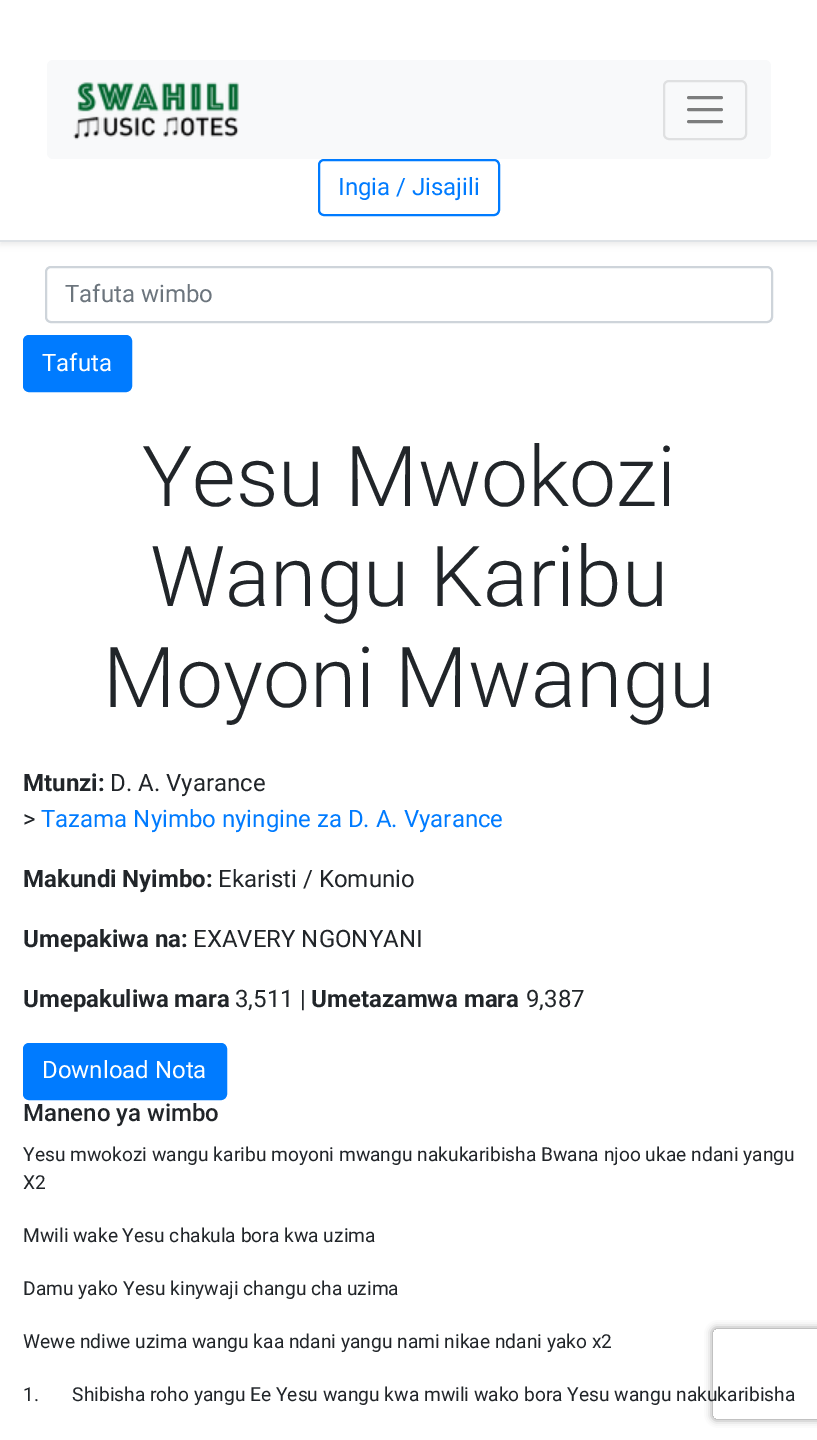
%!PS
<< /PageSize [817 1440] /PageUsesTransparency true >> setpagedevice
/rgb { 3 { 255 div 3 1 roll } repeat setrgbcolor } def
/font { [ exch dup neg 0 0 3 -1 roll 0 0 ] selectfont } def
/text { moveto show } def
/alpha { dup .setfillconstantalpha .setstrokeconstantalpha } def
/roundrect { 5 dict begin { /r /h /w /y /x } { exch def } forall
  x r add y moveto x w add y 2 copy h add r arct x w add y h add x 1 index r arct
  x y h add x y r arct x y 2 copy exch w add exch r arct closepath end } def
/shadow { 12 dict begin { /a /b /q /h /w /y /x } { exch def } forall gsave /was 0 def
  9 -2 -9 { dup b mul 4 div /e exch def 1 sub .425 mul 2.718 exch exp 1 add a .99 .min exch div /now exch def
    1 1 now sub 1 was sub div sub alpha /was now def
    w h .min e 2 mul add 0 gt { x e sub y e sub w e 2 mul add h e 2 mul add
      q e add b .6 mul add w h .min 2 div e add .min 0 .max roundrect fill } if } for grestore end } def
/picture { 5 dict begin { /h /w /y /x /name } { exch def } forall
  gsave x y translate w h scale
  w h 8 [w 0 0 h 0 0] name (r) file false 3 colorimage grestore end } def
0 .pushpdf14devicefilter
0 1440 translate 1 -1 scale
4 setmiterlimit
255 255 255 rgb
0 0 817 1440 rectfill
0 0 0 rgb
0 3 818 242 0 3 0.07 shadow
255 255 255 rgb
0 0 817 240 rectfill
222 226 230 rgb
0 240 817 2 rectfill
248 249 250 rgb
47 60 724 99 6 roundrect fill
(img_01.rgb) 73 82 166 58 picture
223 224 225 rgb
2 setlinewidth
664 81 82 58 5 roundrect stroke
124 125 125 rgb
3 setlinewidth
1 setlinecap
688.5 97.5 moveto 33 0 rlineto 688.5 109.5 moveto 33 0 rlineto 688.5 121.5 moveto 33 0 rlineto stroke
0 123 255 rgb
2 setlinewidth
0 setlinecap
319 160 180 55 5 roundrect stroke
206 212 218 rgb
46 267 726 55 5 roundrect stroke
0 123 255 rgb
24 336 107 55 5 roundrect gsave fill grestore
stroke
24 1044 202 55 5 roundrect gsave fill grestore
stroke
gsave
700 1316 moveto 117 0 rlineto 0 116 rlineto -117 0 rlineto closepath 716 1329 moveto 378 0 rlineto 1.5 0 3 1.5 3 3 rcurveto 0 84 rlineto 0 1.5 -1.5 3 -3 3 rcurveto -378 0 rlineto -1.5 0 -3 -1.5 -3 -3 rcurveto 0 -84 rlineto 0 -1.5 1.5 -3 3 -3 rcurveto closepath eoclip newpath
128 128 128 rgb
713 1329 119 90 3 4 1 shadow
grestore
/Roboto-Regular 24 font
(Ingia / Jisajili) 338 195 text
108 117 125 rgb
(Tafuta wimbo) 65 302 text
255 255 255 rgb
(Tafuta) 42 371 text
/Roboto-Light 84 font
33 37 41 rgb
(Yesu Mwokozi) 142 506 text
(Wangu Karibu) 150 606 text
(Moyoni Mwangu) 103 707 text
/Roboto-Bold 24 font
(Mtunzi:) 23 791 text
/Roboto-Regular 24 font
(D. A. Vyarance) 110 791 text
(>) 23 827 text
0 123 255 rgb
(Tazama Nyimbo nyingine za D. A. Vyarance) 41 827 text
/Roboto-Bold 24 font
33 37 41 rgb
(Makundi Nyimbo:) 23 887 text
/Roboto-Regular 24 font
(Ekaristi / Komunio) 218 887 text
/Roboto-Bold 24 font
(Umepakiwa na:) 23 947 text
/Roboto-Regular 24 font
(EXAVERY NGONYANI) 193 947 text
/Roboto-Bold 24 font
(Umepakuliwa mara) 23 1007 text
/Roboto-Regular 24 font
(3,511 |) 235 1007 text
/Roboto-Bold 24 font
(Umetazamwa mara) 311 1007 text
/Roboto-Regular 24 font
(9,387) 526 1007 text
255 255 255 rgb
(Download Nota) 42 1078 text
/Roboto-Medium 24 font
33 37 41 rgb
(Maneno ya wimbo) 23 1121 text
/Roboto-Regular 19.2 font
(Yesu mwokozi wangu karibu moyoni mwangu nakukaribisha Bwana njoo ukae ndani yangu) 23 1161 text
(X2) 23 1189 text
(Mwili wake Yesu chakula bora kwa uzima) 23 1242 text
(Damu yako Yesu kinywaji changu cha uzima) 23 1295 text
(Wewe ndiwe uzima wangu kaa ndani yangu nami nikae ndani yako x2) 23 1348 text
(1.       Shibisha roho yangu Ee Yesu wangu kwa mwili wako bora Yesu wangu nakukaribisha) 23 1401 text
.poppdf14devicefilter showpage
